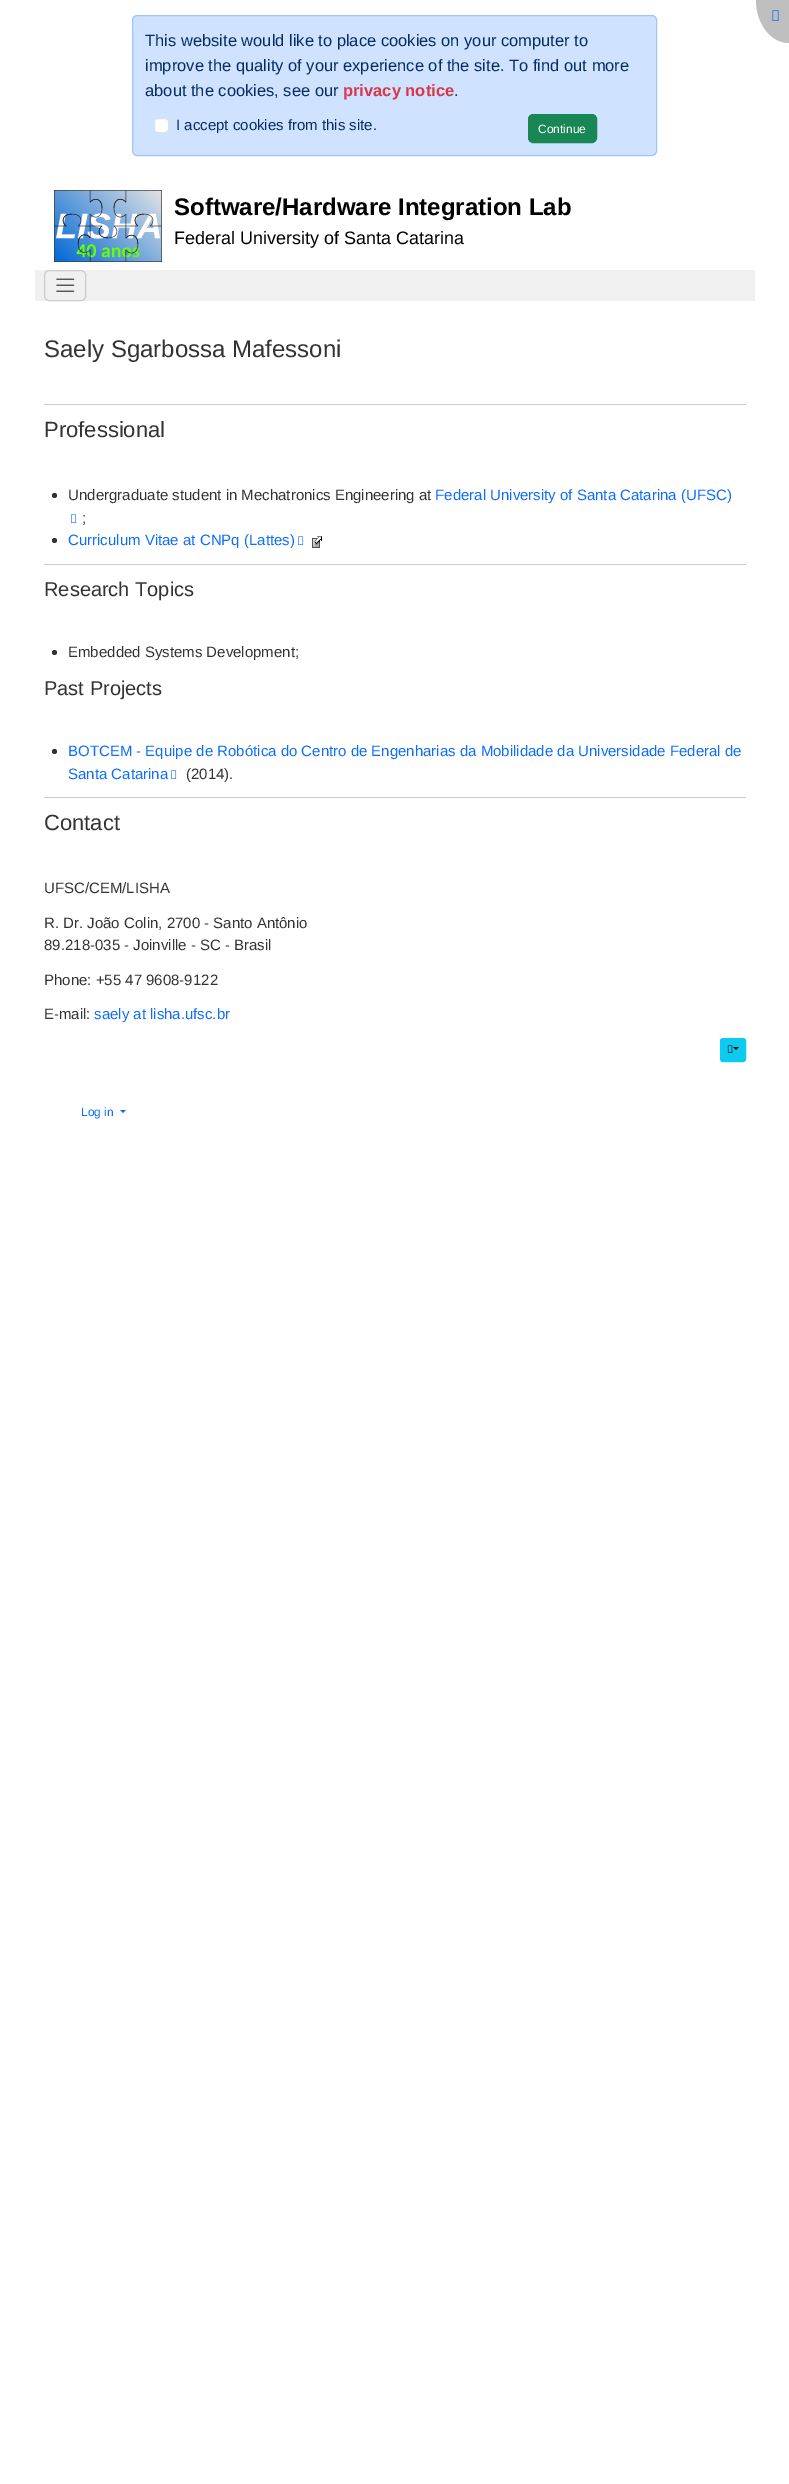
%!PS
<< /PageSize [789 2484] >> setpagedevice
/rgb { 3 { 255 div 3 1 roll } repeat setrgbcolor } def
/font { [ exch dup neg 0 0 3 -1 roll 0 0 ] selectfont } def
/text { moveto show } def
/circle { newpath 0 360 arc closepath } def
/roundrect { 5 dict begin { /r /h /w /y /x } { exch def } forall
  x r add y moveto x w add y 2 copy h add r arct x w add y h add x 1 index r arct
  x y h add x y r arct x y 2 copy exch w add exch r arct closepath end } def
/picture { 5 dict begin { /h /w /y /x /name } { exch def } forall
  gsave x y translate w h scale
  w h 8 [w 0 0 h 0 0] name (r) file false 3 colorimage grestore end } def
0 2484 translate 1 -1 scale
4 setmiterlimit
255 255 255 rgb
0 0 789 2484 rectfill
191 191 191 rgb
756 0 moveto 33 0 rlineto 0 43 rlineto -18 0 -33 -19 -33 -43 rcurveto closepath fill
(img_01.rgb) 772 10 7 11 picture
207 226 255 rgb
132.5 15.5 524 140 4.5 roundrect gsave fill grestore
158 197 254 rgb
stroke
255 255 255 rgb
154.5 118.5 14 14 3.5 roundrect gsave fill grestore
222 226 230 rgb
stroke
25 135 84 rgb
528.5 114.5 68 28 4.5 roundrect gsave fill grestore
stroke
(img_02.rgb) 54 190 108 72 picture
240 240 240 rgb
35 270 720 31 rectfill
204 204 204 rgb
44.5 270.5 41 30 4.5 roundrect stroke
(img_03.rgb) 56 278 19 14 picture
44 404 702 1 rectfill
51 51 51 rgb
54.5 495.5 2.5 circle fill
(img_04.rgb) 71 514 6 9 picture
54.5 540.5 2.5 circle fill
(img_04.rgb) 298 536 6 9 picture
(img_05.rgb) 312 536 10 12 picture
204 204 204 rgb
44 564 702 1 rectfill
51 51 51 rgb
54.5 652.5 2.5 circle fill
54.5 751.5 2.5 circle fill
(img_04.rgb) 171 770 6 9 picture
204 204 204 rgb
44 797 702 1 rectfill
13 202 240 rgb
720.5 1038.5 25 23 2.5 roundrect gsave fill grestore
stroke
(img_06.rgb) 727 1045 6 8 picture
0 0 0 rgb
733 1047 moveto 6 0 rlineto -3 3 rlineto closepath fill
13 110 253 rgb
120 1110 moveto 6 0 rlineto -3 3 rlineto closepath fill
/LiberationSans-Regular 16.5 font
5 44 101 rgb
(This website would like to place cookies on your computer to) 145 46 text
(improve the quality of your experience of the site. To find out more) 145 71 text
(about the cookies, see our) 145 96 text
/LiberationSans-Bold 16.5 font
220 53 69 rgb
(privacy notice) 343 96 text
/LiberationSans-Regular 16.5 font
5 44 101 rgb
(.) 454 96 text
/LiberationSans-Regular 15 font
(I accept cookies from this site.) 176 130 text
/LiberationSans-Regular 12 font
255 255 255 rgb
(Continue) 538 133 text
/LiberationSans-Bold 24 font
0 0 0 rgb
(Software/Hardware Integration Lab) 174 215 text
/LiberationSans-Regular 18 font
(Federal University of Santa Catarina) 174 244 text
/LiberationSans-Regular 24 font
51 51 51 rgb
(Saely Sgarbossa Mafessoni) 44 357 text
/LiberationSans-Regular 22 font
(Professional) 44 437 text
/LiberationSans-Regular 15 font
(Undergraduate student in Mechatronics Engineering at) 68 500 text
13 110 253 rgb
(Federal University of Santa Catarina \(UFSC\)) 435 500 text
51 51 51 rgb
(;) 82 523 text
13 110 253 rgb
(Curriculum Vitae at CNPq \(Lattes\)) 68 545 text
/LiberationSans-Regular 20 font
51 51 51 rgb
(Research Topics) 44 596 text
/LiberationSans-Regular 15 font
(Embedded Systems Development;) 68 657 text
/LiberationSans-Regular 20 font
(Past Projects) 44 695 text
/LiberationSans-Regular 15 font
13 110 253 rgb
(BOTCEM - Equipe de Robótica do Centro de Engenharias da Mobilidade da Universidade Federal de) 68 756 text
(Santa Catarina) 68 779 text
51 51 51 rgb
(\(2014\).) 186 779 text
/LiberationSans-Regular 22 font
(Contact) 44 830 text
/LiberationSans-Regular 15 font
(UFSC/CEM/LISHA) 44 893 text
(R. Dr. João Colin, 2700 - Santo Antônio) 44 928 text
(89.218-035 - Joinville - SC - Brasil) 44 950 text
(Phone: +55 47 9608-9122) 44 985 text
(E-mail:) 44 1019 text
13 110 253 rgb
(saely at lisha.ufsc.br) 94 1019 text
/LiberationSans-Regular 12 font
(Log in) 81 1116 text
showpage
